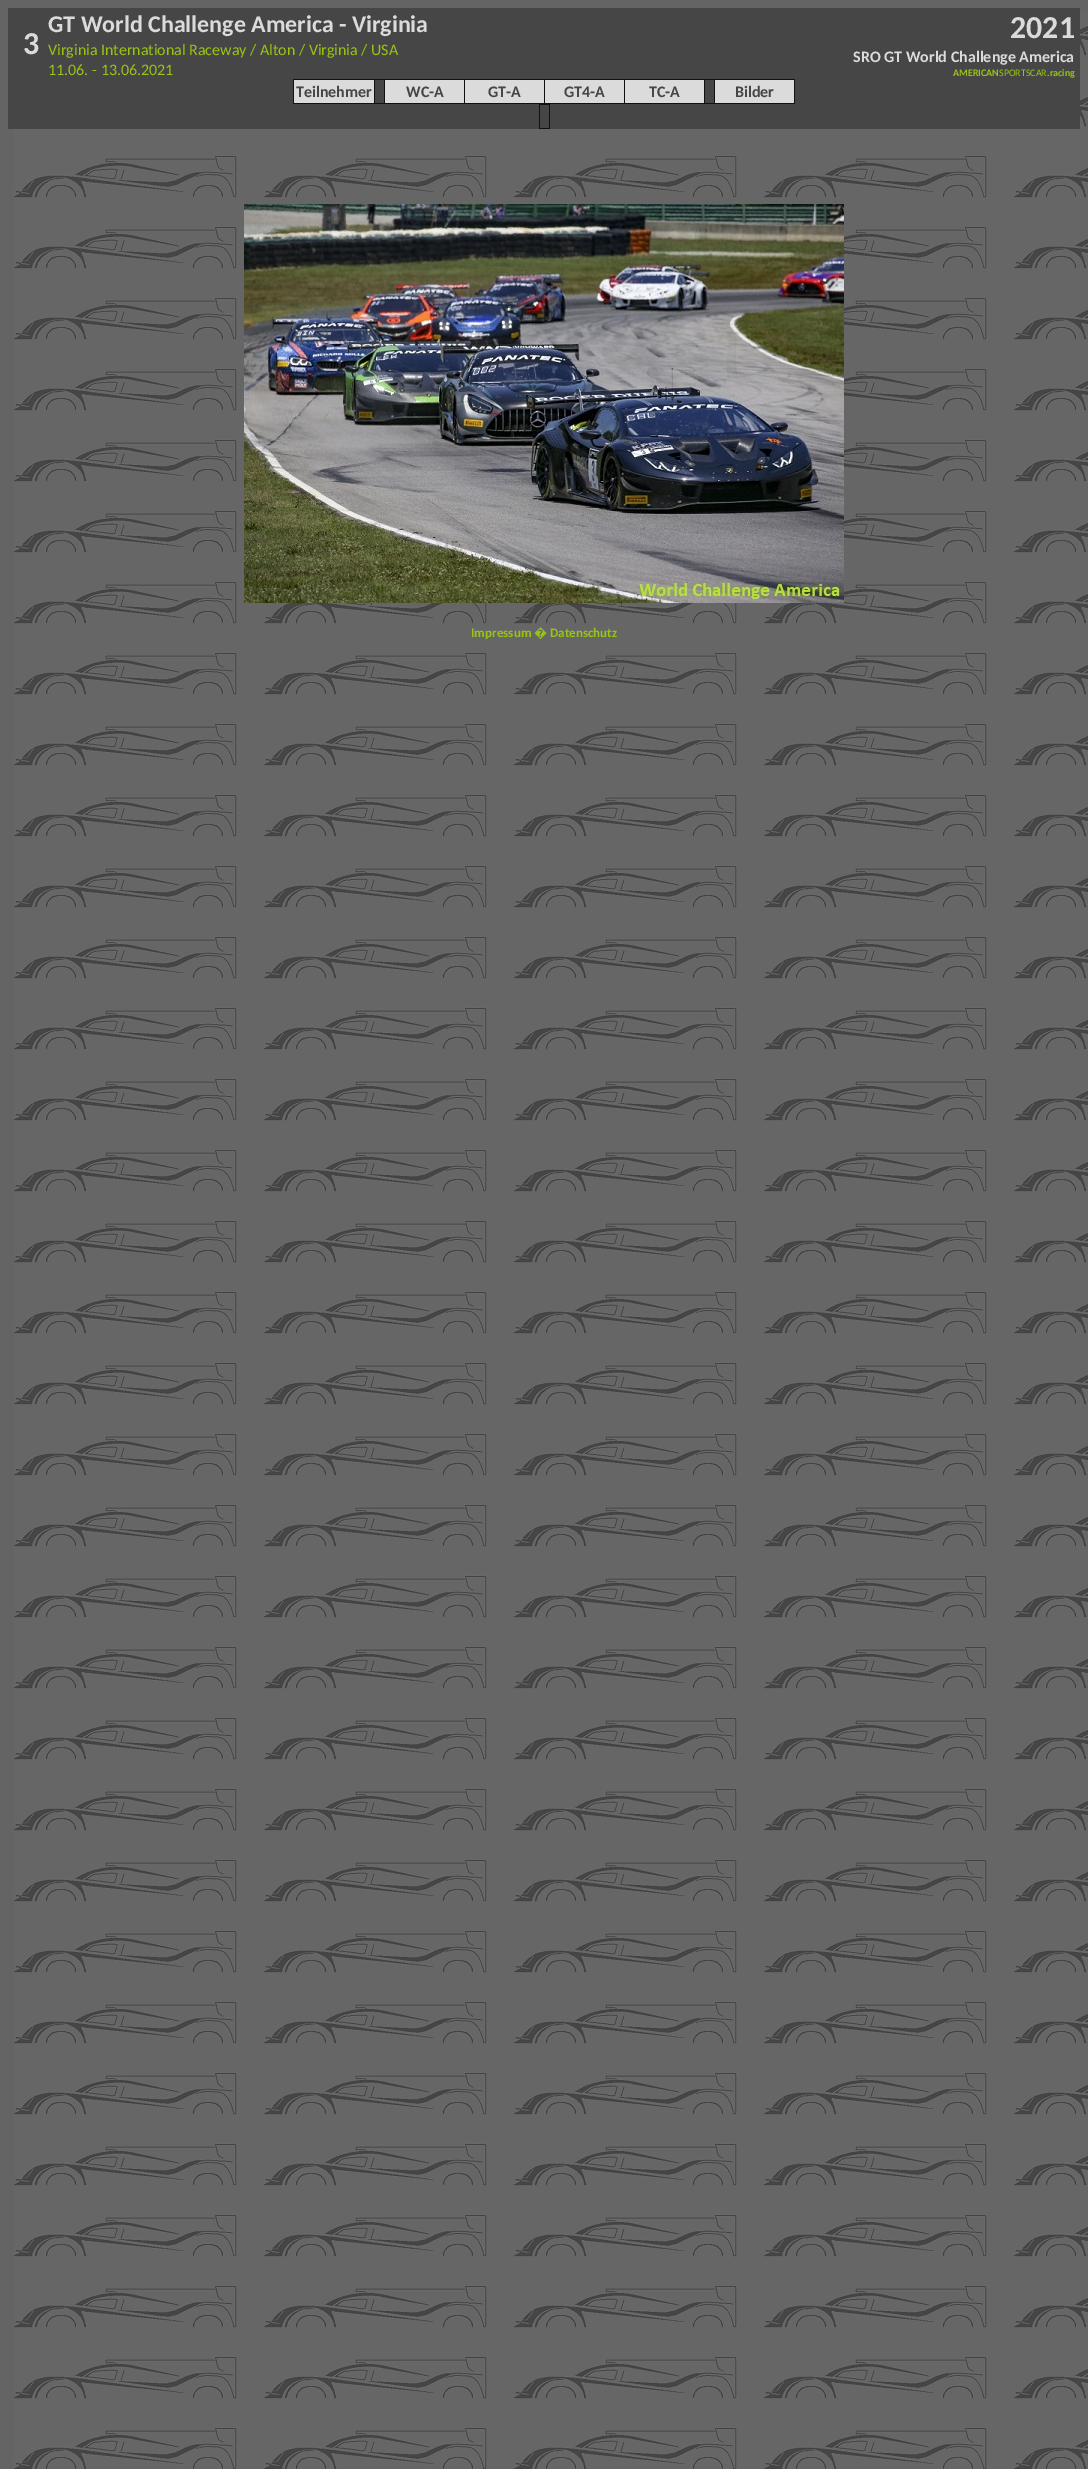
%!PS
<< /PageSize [1088 2469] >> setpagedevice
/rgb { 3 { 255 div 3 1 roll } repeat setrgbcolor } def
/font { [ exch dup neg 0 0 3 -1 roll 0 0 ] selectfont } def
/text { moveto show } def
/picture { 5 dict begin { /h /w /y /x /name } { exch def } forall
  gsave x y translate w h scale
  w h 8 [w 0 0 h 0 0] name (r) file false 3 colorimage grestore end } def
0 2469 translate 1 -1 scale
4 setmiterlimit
100 100 100 rgb
0 0 1088 2469 rectfill
(img_01.rgb) 14 13 1074 2456 picture
70 70 70 rgb
8 8 1072 121 rectfill
17 17 17 rgb
293 79 502 1 rectfill
794 79 1 25 rectfill
293 103 502 1 rectfill
293 79 1 25 rectfill
219 219 219 rgb
294 80 80 23 rectfill
17 17 17 rgb
374 79 1 25 rectfill
219 219 219 rgb
385 80 79 23 rectfill
17 17 17 rgb
384 79 1 25 rectfill
219 219 219 rgb
465 80 79 23 rectfill
17 17 17 rgb
464 79 1 25 rectfill
219 219 219 rgb
545 80 79 23 rectfill
17 17 17 rgb
544 79 1 25 rectfill
219 219 219 rgb
625 80 79 23 rectfill
17 17 17 rgb
624 79 1 25 rectfill
704 79 1 25 rectfill
219 219 219 rgb
715 80 79 23 rectfill
17 17 17 rgb
714 79 1 25 rectfill
539 104 11 1 rectfill
549 104 1 25 rectfill
539 128 11 1 rectfill
539 104 1 25 rectfill
(img_02.rgb) 244 204 600 399 picture
/Carlito-Bold 32 font
219 219 219 rgb
(3) 23 54 text
/Carlito-Bold 24 font
(GT World Challenge America - Virginia) 48 32 text
/Carlito-Bold 32 font
(2021) 1010 38 text
/Carlito-Bold 16 font
(SRO GT World Challenge America) 853 62 text
/Carlito-Bold 10 font
152 196 21 rgb
(AMERICAN) 953 76 text
/Carlito-Regular 10 font
(SPORTSCAR) 999 76 text
/Carlito-Bold 10 font
(.racing) 1047 76 text
/Carlito-Regular 16 font
(Virginia International Raceway / Alton / Virginia / USA) 48 55 text
(11.06. - 13.06.2021) 48 75 text
/Carlito-Bold 16 font
70 70 70 rgb
(Teilnehmer) 296 97 text
(WC-A) 406 97 text
(GT-A) 488 97 text
(GT4-A) 564 97 text
(TC-A) 649 97 text
(Bilder) 735 97 text
/Carlito-Bold 13 font
152 196 21 rgb
(Impressum) 471 637 text
/NotoSans-Bold 13 font
(�) 534 637 text
/Carlito-Bold 13 font
(Datenschutz) 550 637 text
showpage
